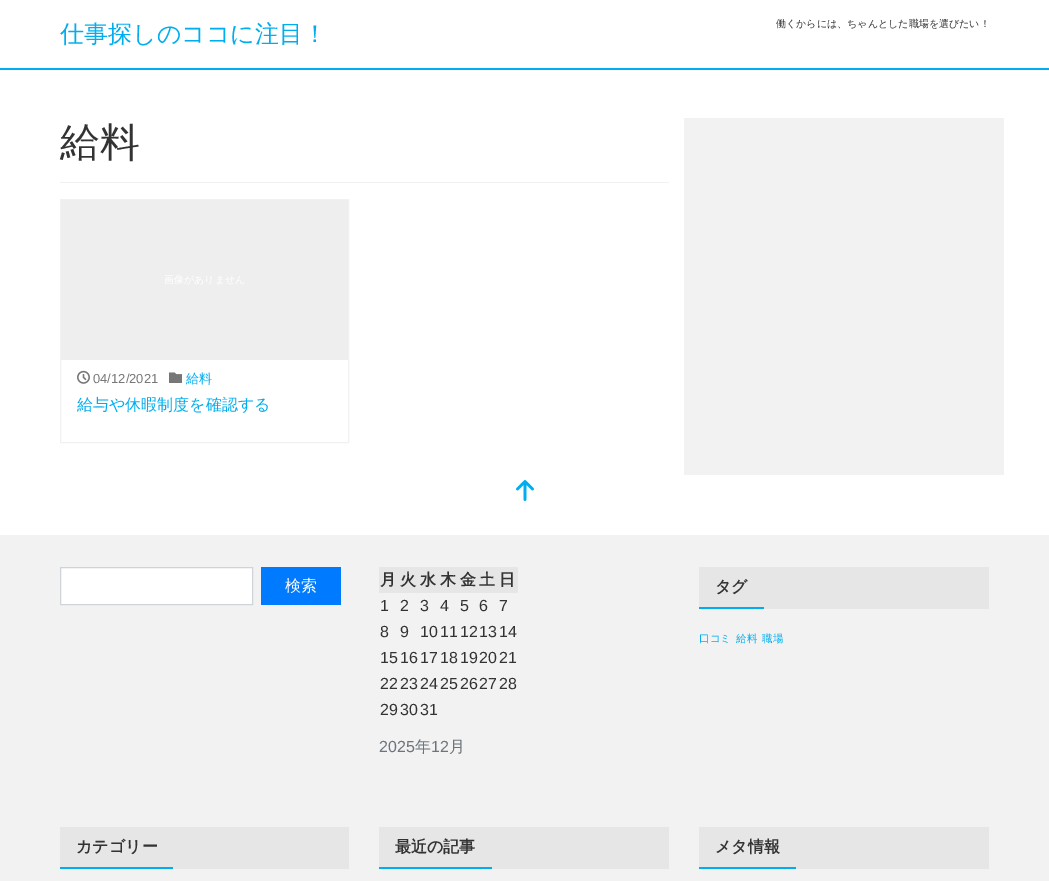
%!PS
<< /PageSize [1049 881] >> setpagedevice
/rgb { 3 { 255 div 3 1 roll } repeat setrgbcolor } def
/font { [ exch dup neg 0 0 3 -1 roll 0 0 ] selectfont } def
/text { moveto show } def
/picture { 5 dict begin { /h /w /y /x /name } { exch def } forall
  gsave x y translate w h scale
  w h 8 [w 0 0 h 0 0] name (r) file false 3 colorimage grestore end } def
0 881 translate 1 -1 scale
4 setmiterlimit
255 255 255 rgb
0 0 1049 881 rectfill
0 174 239 rgb
0 68 1049 2 rectfill
241 241 241 rgb
60 182 609 1 rectfill
60.5 199.5 288 243 rectstroke
238 238 238 rgb
61 200 287 160 rectfill
(img_01.rgb) 77 370 13 14 picture
(img_02.rgb) 169 372 13 11 picture
242 242 242 rgb
684 118 320 357 rectfill
(img_03.rgb) 516 480 18 21 picture
0 535 1049 346 rectfill
255 255 255 rgb
60.5 567.5 moveto 192 0 rlineto 0 37 rlineto -192 0 rlineto closepath gsave fill grestore
206 212 218 rgb
stroke
0 123 255 rgb
261 567 80 38 rectfill
230 230 230 rgb
379 567 139 26 rectfill
699 567 290 42 rectfill
0 174 239 rgb
699 607 65 2 rectfill
230 230 230 rgb
60 827 289 42 rectfill
0 174 239 rgb
60 867 113 2 rectfill
230 230 230 rgb
379 827 290 42 rectfill
0 174 239 rgb
379 867 113 2 rectfill
230 230 230 rgb
699 827 290 42 rectfill
0 174 239 rgb
699 867 97 2 rectfill
/WenQuanYiZenHei-Medium 24 font
(仕事探しのココに注目！) 60 42 text
/WenQuanYiZenHei-Medium 10 font
51 51 51 rgb
(働くからには、ちゃんとした職場を選びたい！) 776 27 text
/WenQuanYiZenHei-Medium 40 font
(給料) 60 156 text
/WenQuanYiZenHei-Medium 10 font
255 255 255 rgb
(画像がありません) 164 283 text
/LiberationSans-Regular 13 font
119 119 119 rgb
(04/12/2021) 93 383 text
/WenQuanYiZenHei-Medium 13 font
0 174 239 rgb
(給料) 186 383 text
gsave
77 395 255 39 rectclip
/WenQuanYiZenHei-Medium 16 font
(給与や休暇制度を確認する) 77 410 text
grestore
/WenQuanYiZenHei-Medium 16 font
255 255 255 rgb
(検索) 285 591 text
/WenQuanYiZenHei-Bold 16 font
51 51 51 rgb
(月) 380 585 text
(火) 400 585 text
(水) 420 585 text
(木) 440 585 text
(金) 460 585 text
(土) 479 585 text
(日) 499 585 text
/LiberationSans-Regular 16 font
(1) 380 611 text
(2) 400 611 text
(3) 420 611 text
(4) 440 611 text
(5) 460 611 text
(6) 479 611 text
(7) 499 611 text
(8) 380 637 text
(9) 400 637 text
(10) 420 637 text
(11) 440 637 text
(12) 460 637 text
(13) 479 637 text
(14) 499 637 text
(15) 380 663 text
(16) 400 663 text
(17) 420 663 text
(18) 440 663 text
(19) 460 663 text
(20) 479 663 text
(21) 499 663 text
(22) 380 689 text
(23) 400 689 text
(24) 420 689 text
(25) 440 689 text
(26) 460 689 text
(27) 479 689 text
(28) 499 689 text
(29) 380 715 text
(30) 400 715 text
(31) 420 715 text
108 117 125 rgb
(2025) 379 752 text
/WenQuanYiZenHei-Medium 16 font
(年) 415 752 text
/LiberationSans-Regular 16 font
(12) 431 752 text
/WenQuanYiZenHei-Medium 16 font
(月) 449 752 text
/WenQuanYiZenHei-Bold 16 font
51 51 51 rgb
(タグ) 715 592 text
/WenQuanYiZenHei-Medium 10.5 font
0 174 239 rgb
(口コミ) 699 642 text
(給料) 736 642 text
(職場) 762 642 text
/WenQuanYiZenHei-Bold 16 font
51 51 51 rgb
(カテゴリー) 76 852 text
(最近の記事) 395 852 text
(メタ情報) 715 852 text
showpage
